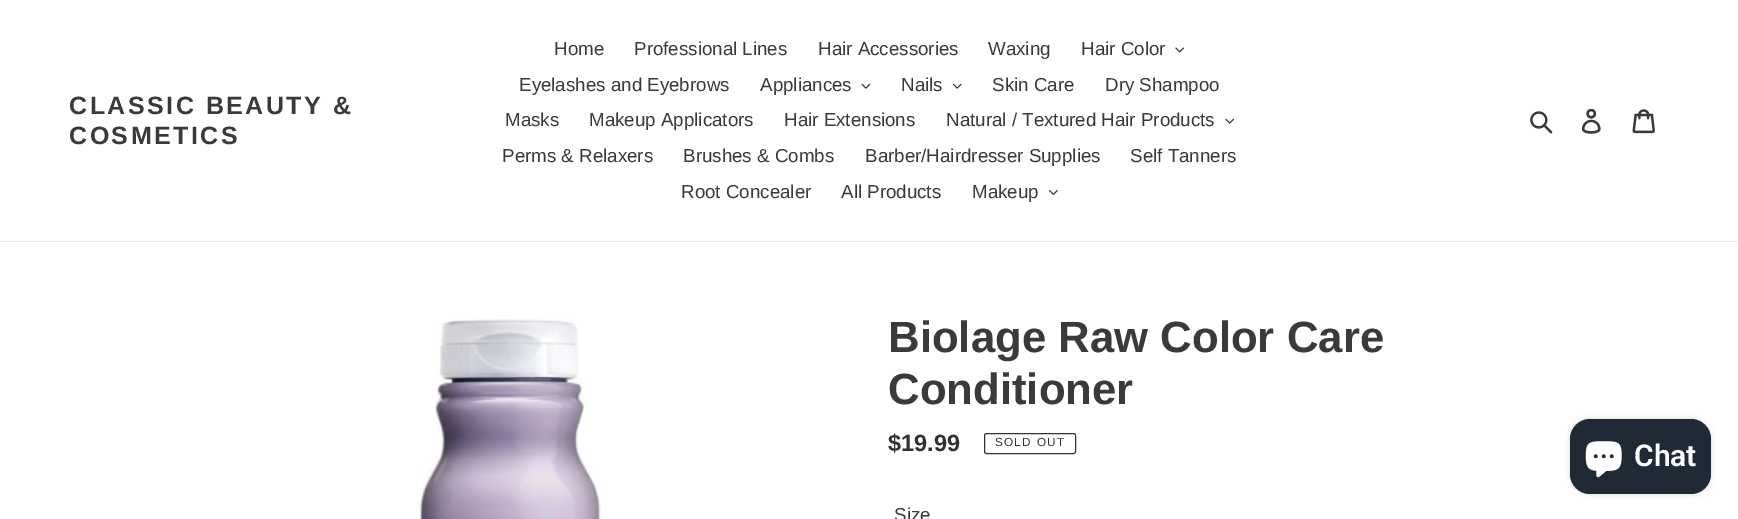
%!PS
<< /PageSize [1738 519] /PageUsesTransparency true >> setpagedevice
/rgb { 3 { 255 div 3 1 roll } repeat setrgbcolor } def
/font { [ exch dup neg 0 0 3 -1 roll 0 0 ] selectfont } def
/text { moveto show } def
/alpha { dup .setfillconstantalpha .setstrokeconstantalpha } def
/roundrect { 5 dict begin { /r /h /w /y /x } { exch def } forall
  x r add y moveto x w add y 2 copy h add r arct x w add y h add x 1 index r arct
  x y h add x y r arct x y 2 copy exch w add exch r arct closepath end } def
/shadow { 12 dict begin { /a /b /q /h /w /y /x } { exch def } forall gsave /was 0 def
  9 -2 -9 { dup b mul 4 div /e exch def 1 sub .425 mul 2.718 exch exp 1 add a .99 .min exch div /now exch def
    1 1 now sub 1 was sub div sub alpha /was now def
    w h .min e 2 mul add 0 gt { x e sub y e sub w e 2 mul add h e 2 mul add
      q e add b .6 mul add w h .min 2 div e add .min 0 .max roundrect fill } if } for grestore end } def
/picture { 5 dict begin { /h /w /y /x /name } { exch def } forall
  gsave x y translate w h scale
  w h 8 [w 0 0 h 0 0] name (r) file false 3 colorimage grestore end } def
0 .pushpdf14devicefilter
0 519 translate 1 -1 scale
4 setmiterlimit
255 255 255 rgb
0 0 1738 519 rectfill
235 235 235 rgb
0 241 1738 1 rectfill
(img_01.rgb) 1175 47 9 6 picture
(img_02.rgb) 861 83 10 6 picture
(img_03.rgb) 953 83 9 6 picture
(img_04.rgb) 1225 118 9 6 picture
(img_05.rgb) 1049 190 9 5 picture
(img_06.rgb) 1530 111 23 23 picture
(img_07.rgb) 1581 109 20 25 picture
(img_08.rgb) 1632 109 23 25 picture
(img_09.rgb) 419 319 182 200 picture
51 50 50 rgb
984.5 433.5 91 20 2 roundrect stroke
0 0 0 rgb
1570 419 141 75 20 3 0.15 shadow
32 42 54 rgb
1570 419 141 75 20 roundrect fill
(img_10.rgb) 1585 441 37 37 picture
/LiberationSans-Bold 25 font
58 58 58 rgb
69 114 moveto 2.5 0 (CLASSIC BEAUTY &) ashow
69 144 moveto 2.5 0 (COSMETICS) ashow
/LiberationSans-Regular 18.75 font
(Home) 554 55 text
(Professional Lines) 634 55 text
(Hair Accessories) 818 55 text
(Waxing) 988 55 text
(Hair Color) 1081 55 text
(Eyelashes and Eyebrows) 519 91 text
(Appliances) 760 91 text
(Nails) 901 91 text
(Skin Care) 992 91 text
(Dry Shampoo) 1105 91 text
(Masks) 505 126 text
(Makeup Applicators) 589 126 text
(Hair Extensions) 784 126 text
(Natural / Textured Hair Products) 946 126 text
(Perms & Relaxers) 502 162 text
(Brushes & Combs) 683 162 text
(Barber/Hairdresser Supplies) 865 162 text
(Self Tanners) 1130 162 text
(Root Concealer) 681 198 text
(All Products) 841 198 text
(Makeup) 972 198 text
/LiberationSans-Bold 43.75 font
(Biolage Raw Color Care) 888 352 text
(Conditioner) 888 404 text
/LiberationSans-Bold 23.5 font
51 50 50 rgb
($19.99) 888 451 text
/LiberationSans-Regular 11.75 font
995 446 moveto 1.25 0 (SOLD OUT) ashow
/LiberationSans-Regular 18.75 font
58 58 58 rgb
(Size) 894 521 text
/Roboto-SemiBold 30 font
255 255 255 rgb
(Chat) 1634 466 text
.poppdf14devicefilter showpage
